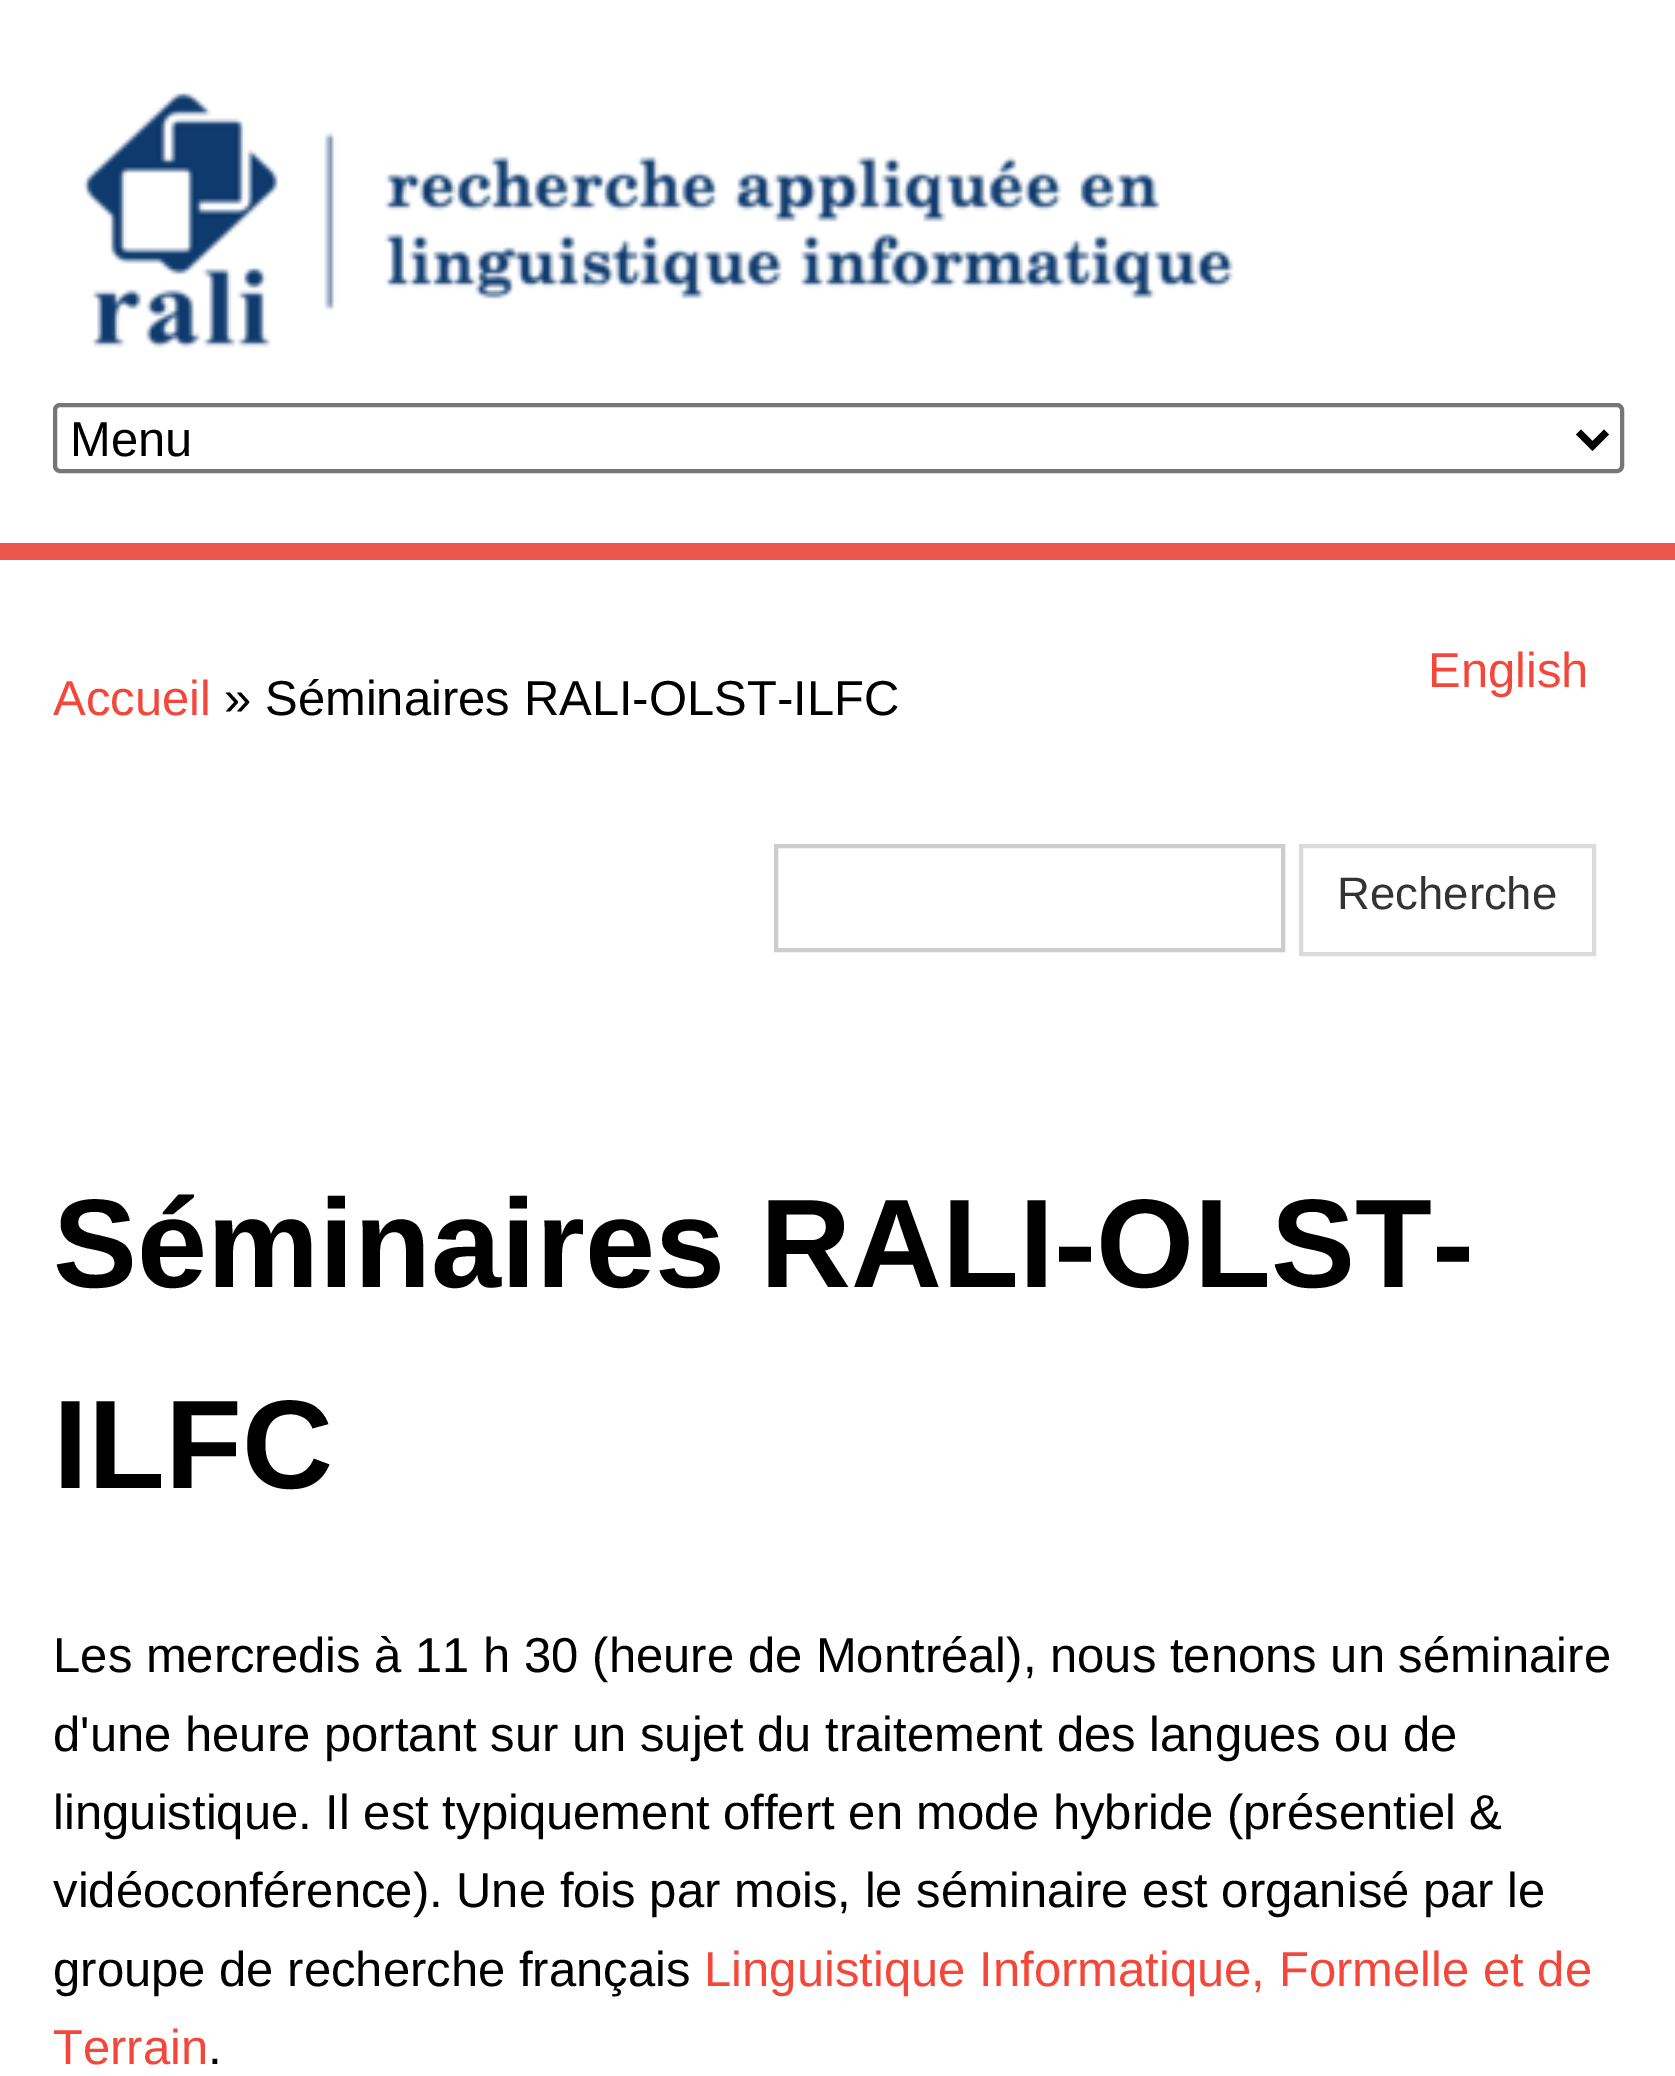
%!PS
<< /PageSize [1675 2076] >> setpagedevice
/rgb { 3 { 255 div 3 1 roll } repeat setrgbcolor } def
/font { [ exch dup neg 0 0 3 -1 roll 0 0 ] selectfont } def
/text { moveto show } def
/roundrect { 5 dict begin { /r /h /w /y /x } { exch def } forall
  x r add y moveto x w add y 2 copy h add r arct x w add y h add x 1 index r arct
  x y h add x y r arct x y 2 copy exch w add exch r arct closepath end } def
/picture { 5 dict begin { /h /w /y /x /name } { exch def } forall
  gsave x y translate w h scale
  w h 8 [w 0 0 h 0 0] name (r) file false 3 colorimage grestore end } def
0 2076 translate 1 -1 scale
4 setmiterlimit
255 255 255 rgb
0 0 1675 2076 rectfill
(img_01.rgb) 83 91 1151 257 picture
118 118 118 rgb
4 setlinewidth
55 405 1567 66 5 roundrect stroke
0 0 0 rgb
7 setlinewidth
1578.5 432 moveto 14 14 rlineto 14 -14 rlineto stroke
237 86 75 rgb
0 543 1675 17 rectfill
204 204 204 rgb
4 setlinewidth
776 846 507 104 rectstroke
219 219 219 rgb
1301 846 293 108 rectstroke
/LiberationSans-Regular 49 font
0 0 0 rgb
(Menu) 70 456 text
244 71 58 rgb
(Accueil) 53 715 text
0 0 0 rgb
(» Séminaires RALI-OLST-ILFC) 224 715 text
244 71 58 rgb
(English) 1428 687 text
/LiberationSans-Regular 45.5 font
51 51 51 rgb
(Recherche) 1337 909 text
/LiberationSans-Bold 126 font
0 0 0 rgb
(Séminaires RALI-OLST-) 53 1287 text
(ILFC) 53 1488 text
/LiberationSans-Regular 49 font
(Les mercredis à 11 h 30 \(heure de Montréal\), nous tenons un séminaire) 53 1672 text
(d'une heure portant sur un sujet du traitement des langues ou de) 53 1751 text
(linguistique. Il est typiquement offert en mode hybride \(présentiel &) 53 1829 text
(vidéoconférence\). Une fois par mois, le séminaire est organisé par le) 53 1907 text
(groupe de recherche français) 53 1986 text
244 71 58 rgb
(Linguistique Informatique, Formelle et de) 704 1986 text
(Terrain) 53 2064 text
0 0 0 rgb
(.) 208 2064 text
showpage
